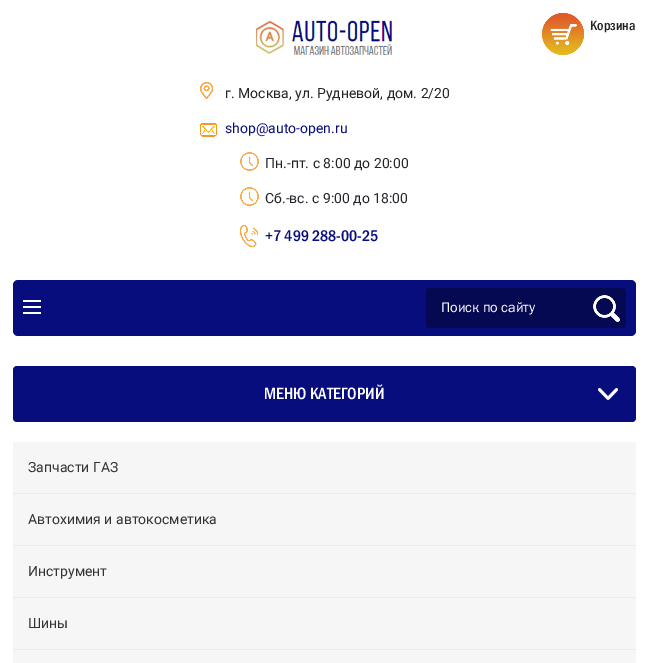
%!PS
<< /PageSize [649 663] >> setpagedevice
/rgb { 3 { 255 div 3 1 roll } repeat setrgbcolor } def
/font { [ exch dup neg 0 0 3 -1 roll 0 0 ] selectfont } def
/text { moveto show } def
/roundrect { 5 dict begin { /r /h /w /y /x } { exch def } forall
  x r add y moveto x w add y 2 copy h add r arct x w add y h add x 1 index r arct
  x y h add x y r arct x y 2 copy exch w add exch r arct closepath end } def
/picture { 5 dict begin { /h /w /y /x /name } { exch def } forall
  gsave x y translate w h scale
  w h 8 [w 0 0 h 0 0] name (r) file false 3 colorimage grestore end } def
0 663 translate 1 -1 scale
4 setmiterlimit
255 255 255 rgb
0 0 649 663 rectfill
(img_01.rgb) 542 13 42 42 picture
(img_02.rgb) 256 20 137 36 picture
(img_03.rgb) 200 82 13 17 picture
(img_04.rgb) 200 123 17 14 picture
(img_05.rgb) 240 152 19 19 picture
(img_05.rgb) 240 187 19 19 picture
(img_06.rgb) 240 225 18 22 picture
7 13 125 rgb
13 280 623 56 5 roundrect fill
255 255 255 rgb
23 300 18 2 rectfill
23 306 18 2 rectfill
23 312 18 2 rectfill
5 9 82 rgb
426 288 200 40 4 roundrect fill
(img_07.rgb) 593 295 27 27 picture
7 13 125 rgb
13 366 623 56 4 roundrect fill
(img_08.rgb) 598 388 20 12 picture
246 246 246 rgb
13 442 623 51 rectfill
236 236 236 rgb
13 493 623 1 rectfill
246 246 246 rgb
13 494 623 51 rectfill
236 236 236 rgb
13 545 623 1 rectfill
246 246 246 rgb
13 546 623 51 rectfill
236 236 236 rgb
13 597 623 1 rectfill
246 246 246 rgb
13 598 623 51 rectfill
236 236 236 rgb
13 649 623 1 rectfill
246 246 246 rgb
13 650 623 13 rectfill
/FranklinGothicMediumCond-Medium 14 font
34 34 34 rgb
(Корзина) 590 30 text
/Roboto-Regular 14 font
33 37 41 rgb
(г. Москва, ул. Рудневой, дом. 2/20) 225 98 text
7 13 125 rgb
(shop@auto-open.ru) 225 133 text
33 37 41 rgb
(Пн.-пт. с 8:00 до 20:00) 265 168 text
(Сб.-вс. с 9:00 до 18:00) 265 203 text
/FranklinGothicMediumCond-Medium 16 font
7 13 125 rgb
(+7 499 288-00-25) 265 241 text
/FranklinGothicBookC-Regular 14 font
255 255 255 rgb
(Поиск по сайту) 441 312 text
/FranklinGothicMediumCond-Medium 17 font
(МЕНЮ КАТЕГОРИЙ) 264 399 text
/Roboto-Regular 14 font
51 51 51 rgb
(Запчасти ГАЗ) 28 472 text
(Автохимия и автокосметика) 28 524 text
(Инструмент) 28 576 text
(Шины) 28 628 text
showpage
